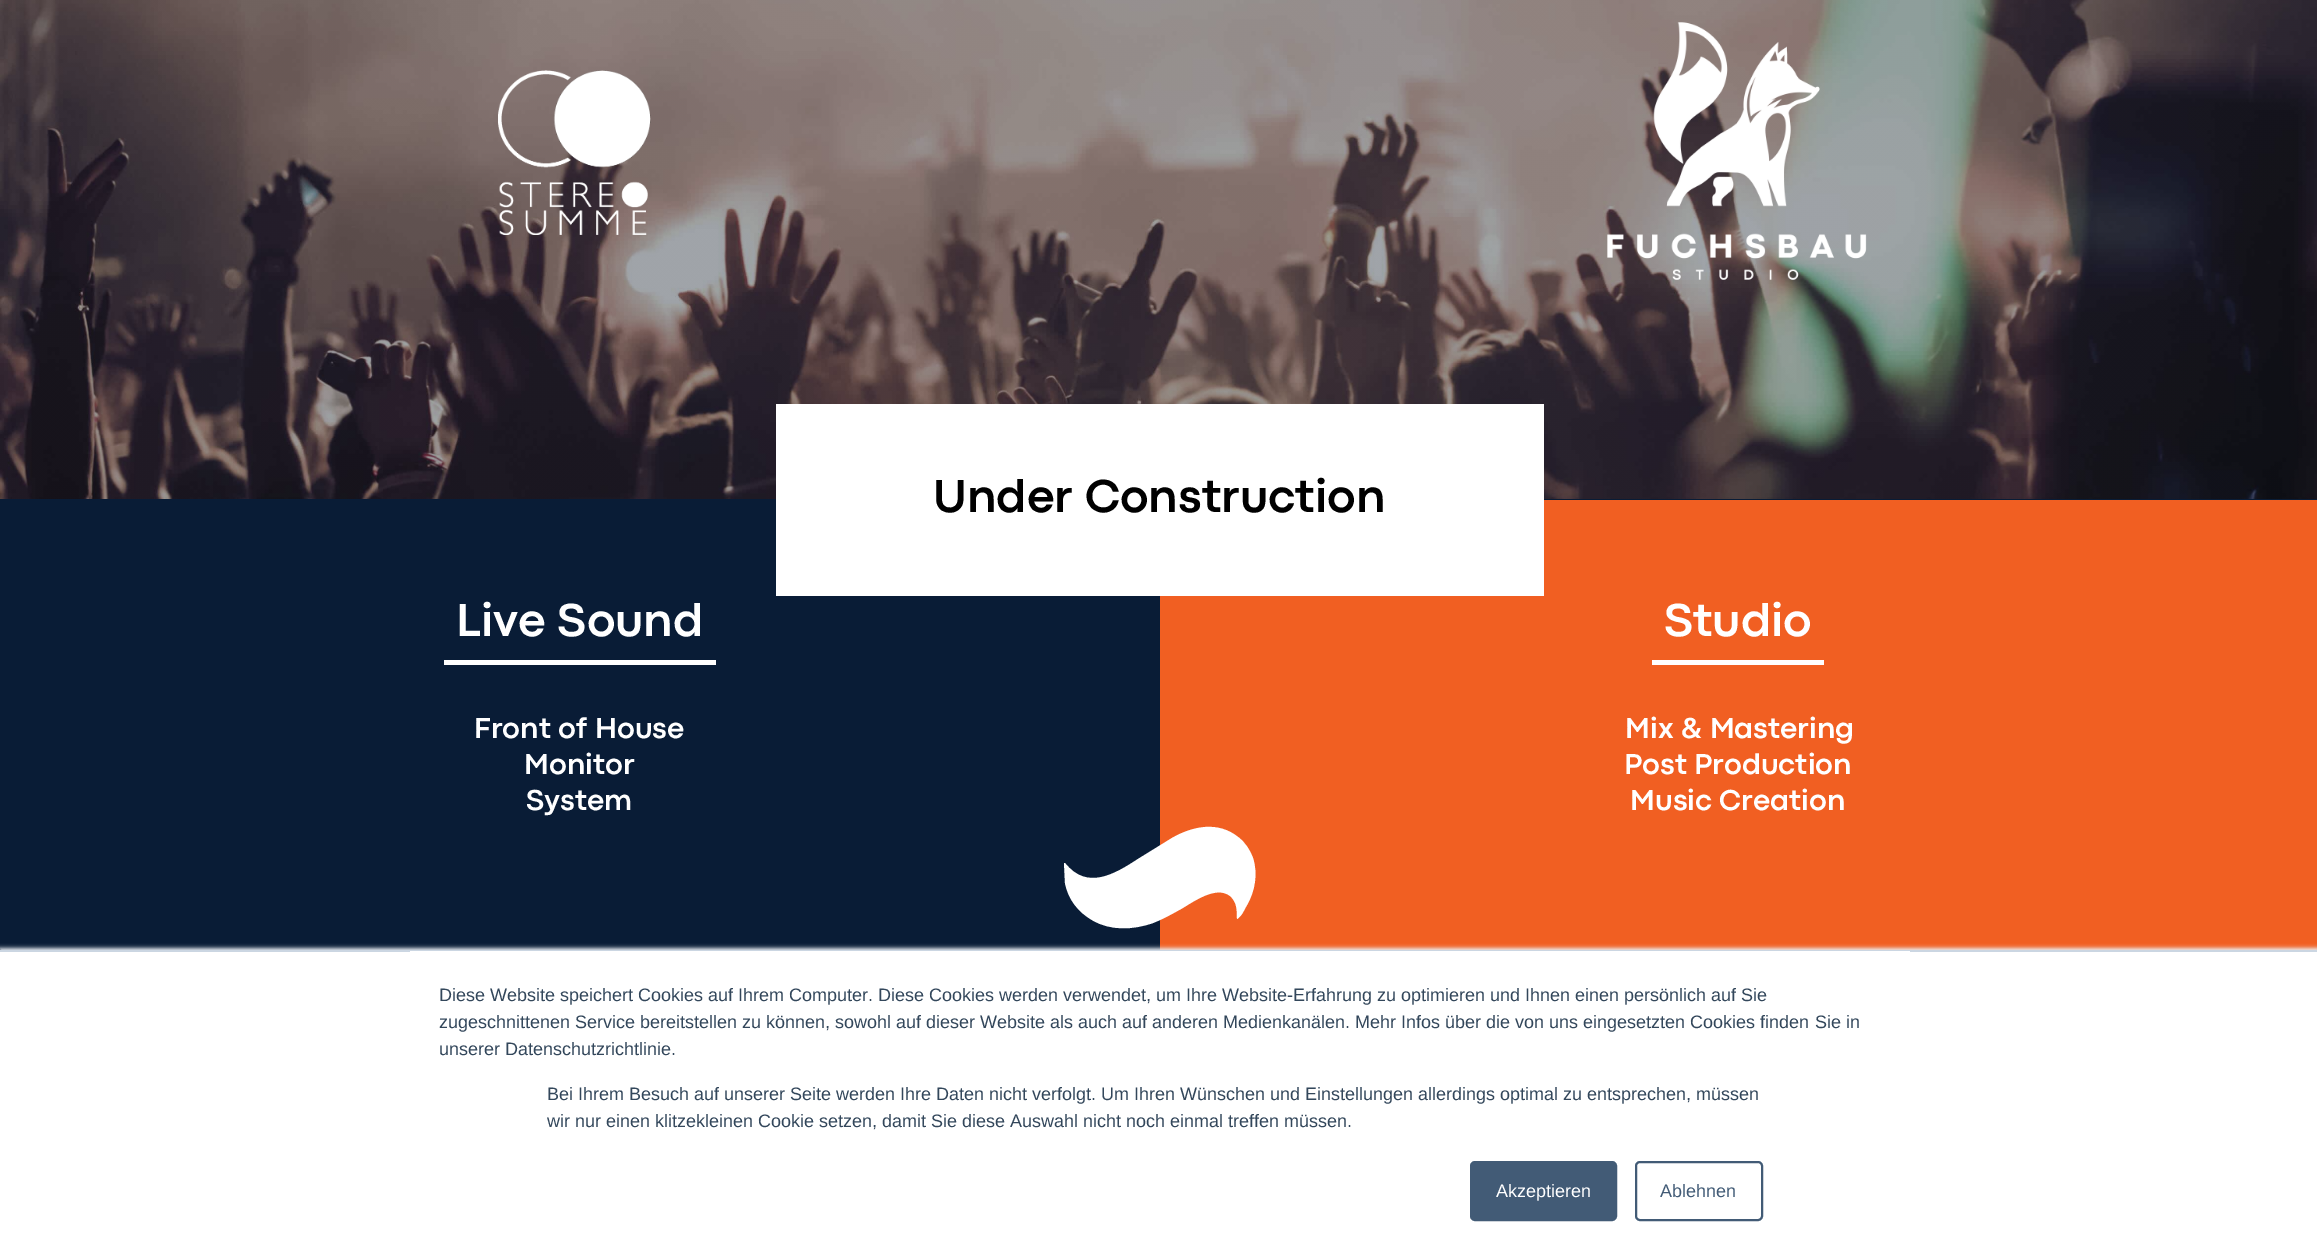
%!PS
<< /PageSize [2317 1260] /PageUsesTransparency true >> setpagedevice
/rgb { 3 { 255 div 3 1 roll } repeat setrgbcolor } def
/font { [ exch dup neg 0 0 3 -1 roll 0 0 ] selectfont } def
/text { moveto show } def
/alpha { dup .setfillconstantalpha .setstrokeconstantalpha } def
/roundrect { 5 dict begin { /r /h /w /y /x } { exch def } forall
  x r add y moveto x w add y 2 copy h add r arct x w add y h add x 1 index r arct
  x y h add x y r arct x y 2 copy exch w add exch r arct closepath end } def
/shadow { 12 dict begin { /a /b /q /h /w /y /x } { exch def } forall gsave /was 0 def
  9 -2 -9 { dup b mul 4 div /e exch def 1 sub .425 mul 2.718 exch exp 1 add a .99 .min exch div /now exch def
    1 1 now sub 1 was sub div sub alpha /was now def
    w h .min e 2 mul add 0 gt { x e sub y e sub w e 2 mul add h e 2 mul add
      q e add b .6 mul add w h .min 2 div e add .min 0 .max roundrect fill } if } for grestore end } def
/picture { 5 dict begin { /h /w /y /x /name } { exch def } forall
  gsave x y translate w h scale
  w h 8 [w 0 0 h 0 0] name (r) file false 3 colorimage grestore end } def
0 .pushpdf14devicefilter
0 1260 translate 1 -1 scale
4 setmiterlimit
9 28 54 rgb
0 0 2317 1260 rectfill
(img_01.rgb) 0 0 2317 499 picture
(img_02.rgb) 498 70 153 165 picture
(img_03.rgb) 1607 22 260 258 picture
241 95 34 rgb
1160 500 1157 450 rectfill
255 255 255 rgb
776 404 768 192 rectfill
444 660 272 5 rectfill
1652 660 172 5 rectfill
1172 838 moveto -34 21 rlineto -23 15 -51 32 -73 4 rcurveto -1 0 rlineto 1 20 rlineto 3 16 13 29 27 37 rcurveto 18 11 41 10 61 3 rcurveto 10 -4 19 -9 28 -14 rcurveto 12 -7 35 -24 49 -13 rcurveto 7 6 7 14 7 23 rcurveto 5 -3 7 -9 10 -14 rcurveto 8 -14 11 -31 6 -47 rcurveto -3 -8 -8 -16 -15 -21 rcurveto -20 -16 -45 -11 -66 1 rcurveto closepath fill
234 240 246 rgb
0 948 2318 311 0 2 1 shadow
255 255 255 rgb
0 952 2317 308 rectfill
203 214 226 rgb
0 950 2317 2 rectfill
255 255 255 rgb
410 951 1500 1 rectfill
66 91 118 rgb
1471 1162 145 58 4 roundrect gsave fill grestore
2 setlinewidth
stroke
1636 1162 126 58 4 roundrect stroke
/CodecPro-Bold 48 font
0 0 0 rgb
(Under Construction) 933 512 text
255 255 255 rgb
(Live Sound) 456 636 text
/CodecPro-Bold 30 font
(Front of House) 474 738 text
(Monitor) 524 774 text
(System) 526 810 text
/CodecPro-Bold 48 font
(Studio) 1664 636 text
/CodecPro-Bold 30 font
(Mix & Mastering) 1625 738 text
(Post Production) 1624 774 text
(Music Creation) 1630 810 text
/LiberationSans-Regular 18 font
51 71 91 rgb
(Diese Website speichert Cookies auf Ihrem Computer. Diese Cookies werden verwendet, um Ihre Website-Erfahrung zu optimieren und Ihnen einen persönlich auf Sie) 439 1001 text
(zugeschnittenen Service bereitstellen zu können, sowohl auf dieser Website als auch auf anderen Medienkanälen. Mehr Infos über die von uns eingesetzten Cookies finden Sie in) 439 1028 text
(unserer Datenschutzrichtlinie.) 439 1055 text
(Bei Ihrem Besuch auf unserer Seite werden Ihre Daten nicht verfolgt. Um Ihren Wünschen und Einstellungen allerdings optimal zu entsprechen, müssen) 547 1100 text
(wir nur einen klitzekleinen Cookie setzen, damit Sie diese Auswahl nicht noch einmal treffen müssen.) 547 1127 text
255 255 255 rgb
(Akzeptieren) 1496 1197 text
66 91 118 rgb
(Ablehnen) 1660 1197 text
.poppdf14devicefilter showpage
